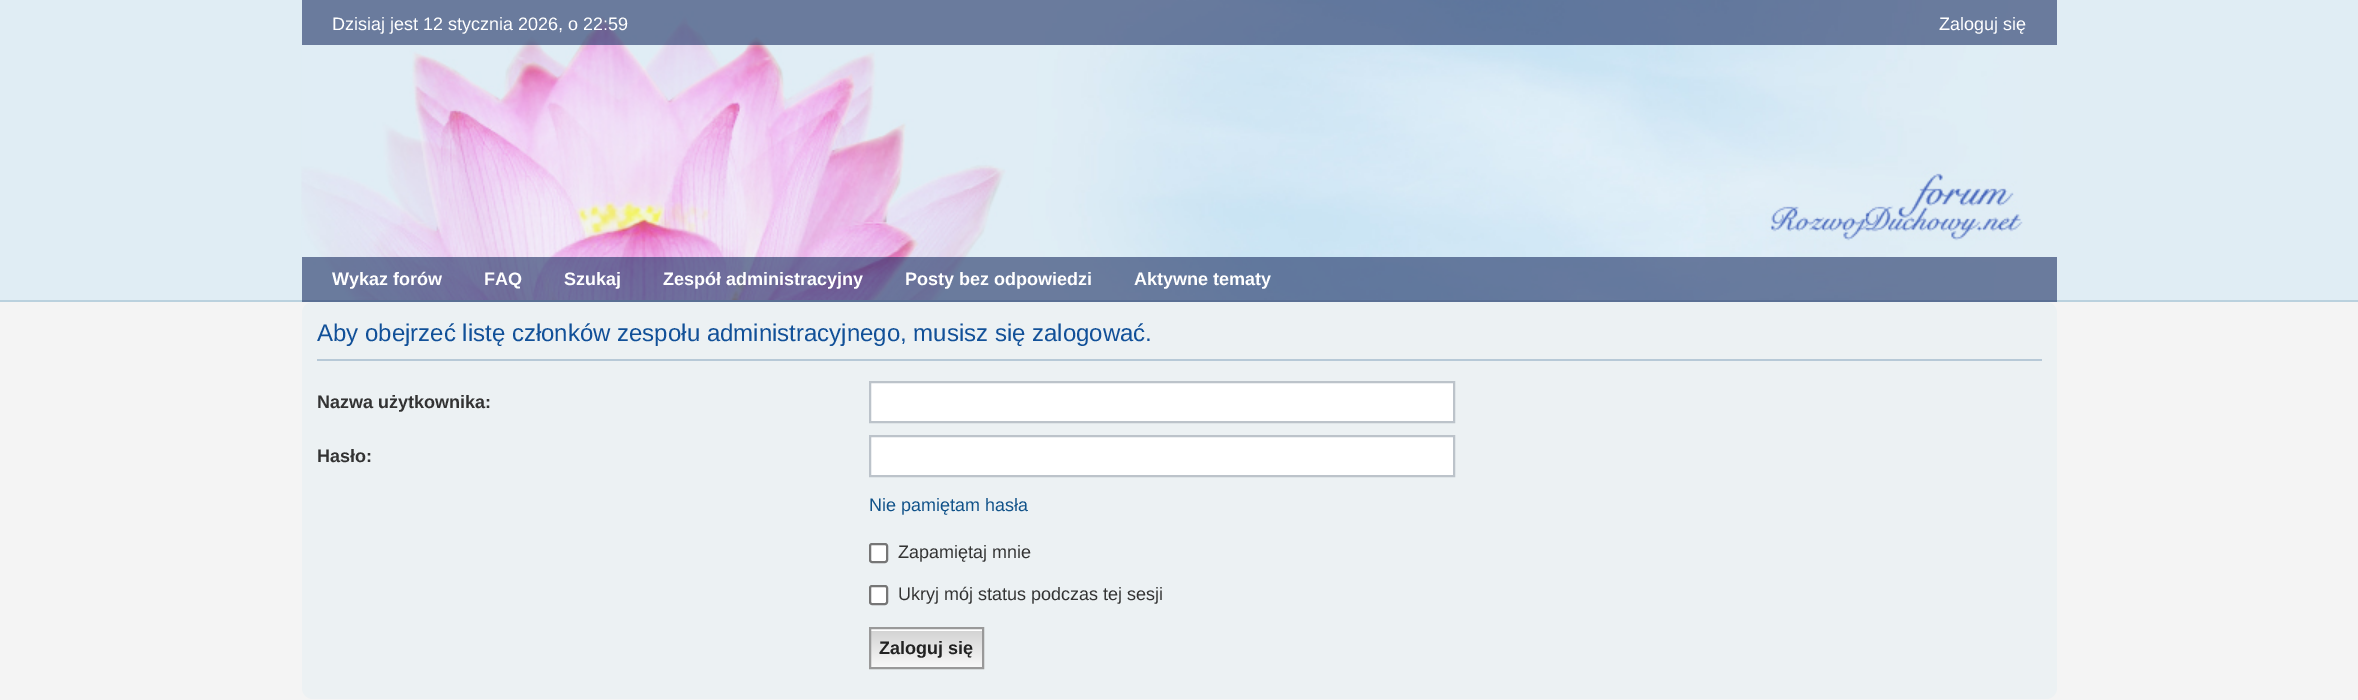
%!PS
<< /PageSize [2358 700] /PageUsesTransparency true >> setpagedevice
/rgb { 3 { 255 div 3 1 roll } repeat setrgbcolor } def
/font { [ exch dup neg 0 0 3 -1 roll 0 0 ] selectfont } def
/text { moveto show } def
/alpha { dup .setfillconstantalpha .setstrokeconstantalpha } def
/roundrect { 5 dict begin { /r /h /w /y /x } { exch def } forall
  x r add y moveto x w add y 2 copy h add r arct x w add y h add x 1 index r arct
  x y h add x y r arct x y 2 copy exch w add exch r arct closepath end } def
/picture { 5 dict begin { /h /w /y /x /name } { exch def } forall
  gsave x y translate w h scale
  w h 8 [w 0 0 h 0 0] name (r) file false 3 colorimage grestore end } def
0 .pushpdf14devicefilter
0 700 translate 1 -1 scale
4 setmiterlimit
244 244 244 rgb
0 0 2358 700 rectfill
224 237 244 rgb
0 0 2358 300 rectfill
186 209 222 rgb
0 300 2358 2 rectfill
(img_01.rgb) 301 0 1722 300 picture
0.6 alpha
27 47 99 rgb
302 0 1755 45 rectfill
302 257 1755 45 rectfill
1 alpha
236 241 243 rgb
302 302 1755 397 11 roundrect fill
183 201 215 rgb
317 359 1725 2 rectfill
255 255 255 rgb
870 382 moveto 584 0 rlineto 0 40 rlineto -584 0 rlineto closepath gsave fill grestore
188 195 202 rgb
2 setlinewidth
stroke
255 255 255 rgb
870 436 moveto 584 0 rlineto 0 40 rlineto -584 0 rlineto closepath gsave fill grestore
188 195 202 rgb
stroke
255 255 255 rgb
870 544 17 18 2 roundrect gsave fill grestore
118 118 118 rgb
stroke
255 255 255 rgb
870 586 17 18 2 roundrect gsave fill grestore
118 118 118 rgb
stroke
gsave 871 631 moveto 111 0 rlineto 0 36 rlineto -111 0 rlineto closepath clip newpath
<< /ShadingType 2 /ColorSpace /DeviceRGB /Coords [926 629 926 668] /Extend [true true] /Function << /FunctionType 2 /Domain [0 1] /C0 [0.824 0.824 0.824] /C1 [0.976 0.976 0.976] /N 1 >> >> shfill grestore
255 255 255 rgb
870 629 113 2 rectfill
153 153 153 rgb
870 628 113 40 rectstroke
/LiberationSans-Regular 18 font
255 255 255 rgb
(Dzisiaj jest 12 stycznia 2026, o 22:59) 332 30 text
(Zaloguj się) 1939 30 text
/LiberationSans-Bold 18 font
(Wykaz forów) 332 285 text
(FAQ) 484 285 text
(Szukaj) 564 285 text
(Zespół administracyjny) 663 285 text
(Posty bez odpowiedzi) 905 285 text
(Aktywne tematy) 1134 285 text
/LiberationSans-Regular 24 font
17 80 152 rgb
(Aby obejrzeć listę członków zespołu administracyjnego, musisz się zalogować.) 317 341 text
/LiberationSans-Bold 18 font
51 51 51 rgb
(Nazwa użytkownika:) 317 408 text
(Hasło:) 317 462 text
/LiberationSans-Regular 18 font
16 82 137 rgb
(Nie pamiętam hasła) 869 511 text
51 51 51 rgb
(Zapamiętaj mnie) 898 558 text
(Ukryj mój status podczas tej sesji) 898 600 text
/LiberationSans-Bold 18 font
34 34 34 rgb
(Zaloguj się) 879 654 text
.poppdf14devicefilter showpage
